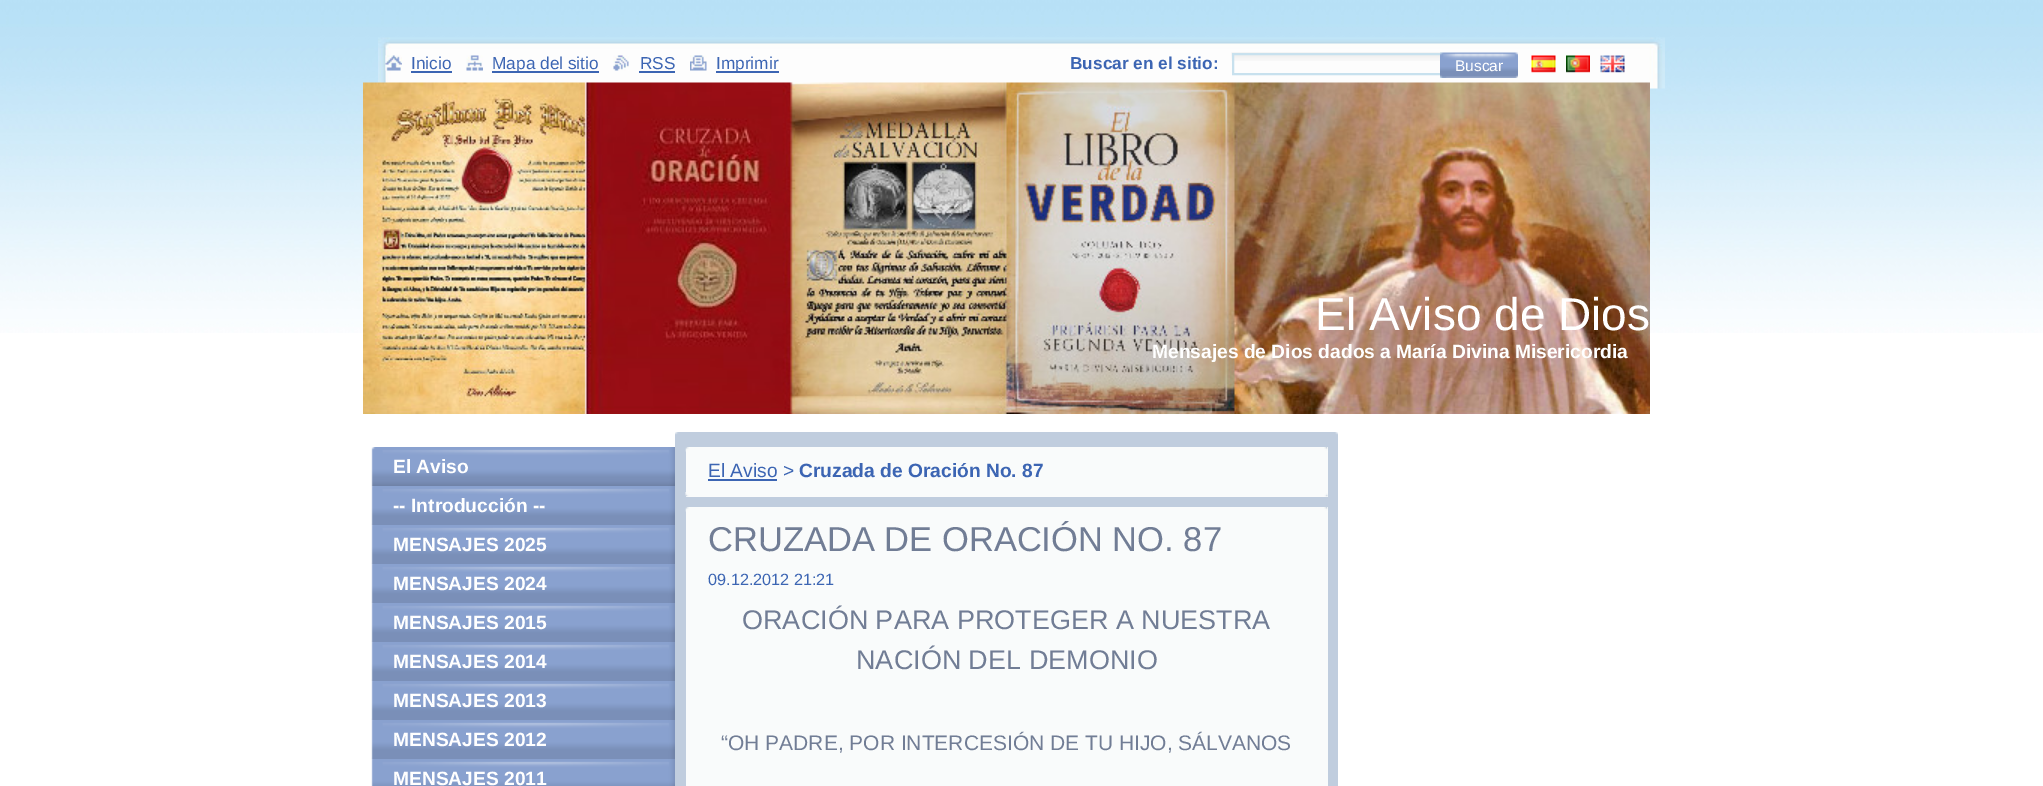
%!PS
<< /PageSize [2043 786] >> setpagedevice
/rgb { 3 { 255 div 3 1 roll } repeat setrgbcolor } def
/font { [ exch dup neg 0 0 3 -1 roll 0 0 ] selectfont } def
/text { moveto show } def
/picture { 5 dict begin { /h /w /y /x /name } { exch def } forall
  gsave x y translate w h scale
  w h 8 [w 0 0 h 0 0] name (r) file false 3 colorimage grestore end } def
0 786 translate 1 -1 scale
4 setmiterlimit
255 255 255 rgb
0 0 2043 786 rectfill
(img_01.rgb) 0 0 2043 333 picture
(img_13.rgb) 378 37 1287 52 picture
(img_02.rgb) 385 55 17 16 picture
60 101 179 rgb
411 71 41 2 rectfill
(img_03.rgb) 466 55 17 16 picture
492 71 107 2 rectfill
(img_04.rgb) 613 55 16 16 picture
639 71 36 2 rectfill
(img_05.rgb) 690 55 17 16 picture
716 71 63 2 rectfill
(img_06.rgb) 1231 52 211 9 picture
200 225 238 rgb
2 setlinewidth
1233 54 208 20 rectstroke
(img_07.rgb) 1440 52 15 26 picture
(img_08.rgb) 1455 52 48 26 picture
(img_09.rgb) 1503 52 15 26 picture
(img_10.rgb) 1531 55 25 18 picture
(img_11.rgb) 1566 55 24 18 picture
(img_12.rgb) 1600 55 25 18 picture
(img_14.rgb) 363 82 1287 332 picture
(img_15.rgb) 371 447 304 39 picture
(img_16.rgb) 371 486 304 39 picture
(img_16.rgb) 371 525 304 39 picture
(img_16.rgb) 371 564 304 39 picture
(img_16.rgb) 371 603 304 39 picture
(img_16.rgb) 371 642 304 39 picture
(img_16.rgb) 371 681 304 39 picture
(img_16.rgb) 371 720 304 39 picture
(img_17.rgb) 371 759 304 27 picture
192 205 222 rgb
675 435 663 351 rectfill
(img_18.rgb) 675 432 663 3 picture
249 251 251 rgb
686 447 642 50 rectfill
(img_19.rgb) 685 492 643 5 picture
(img_20.rgb) 685 447 643 5 picture
60 101 179 rgb
708 479 69 2 rectfill
249 251 251 rgb
686 507 642 279 rectfill
(img_20.rgb) 685 507 643 5 picture
/LiberationSans-Regular 17.25 font
60 101 179 rgb
(Inicio) 411 69 text
(Mapa del sitio) 492 69 text
(RSS) 640 69 text
(Imprimir) 716 69 text
/LiberationSans-Bold 17.25 font
(Buscar en el sitio:) 1070 69 text
/LiberationSans-Regular 15.5 font
255 255 255 rgb
(Buscar) 1455 71 text
/LiberationSans-Regular 46 font
(El Aviso de Dios) 1315 330 text
/LiberationSans-Bold 19.2 font
(Mensajes de Dios dados a María Divina Misericordia) 1152 358 text
(El Aviso) 393 473 text
(-- Introducción --) 393 512 text
(MENSAJES 2025) 393 551 text
(MENSAJES 2024) 393 590 text
(MENSAJES 2015) 393 629 text
(MENSAJES 2014) 393 668 text
(MENSAJES 2013) 393 707 text
(MENSAJES 2012) 393 746 text
(MENSAJES 2011) 393 785 text
/LiberationSans-Regular 19.2 font
60 101 179 rgb
(El Aviso >) 708 477 text
/LiberationSans-Bold 19.2 font
(Cruzada de Oración No. 87) 799 477 text
/LiberationSans-Regular 34.5 font
113 125 149 rgb
(CRUZADA DE ORACIÓN NO. 87) 708 551 text
/LiberationSans-Regular 16.25 font
60 101 179 rgb
(09.12.2012 21:21) 708 585 text
/LiberationSans-Regular 27 font
113 125 149 rgb
(ORACIÓN PARA PROTEGER A NUESTRA) 742 629 text
(NACIÓN DEL DEMONIO) 856 669 text
/LiberationSans-Regular 21 font
(“OH PADRE, POR INTERCESIÓN DE TU HIJO, SÁLVANOS) 721 750 text
showpage
